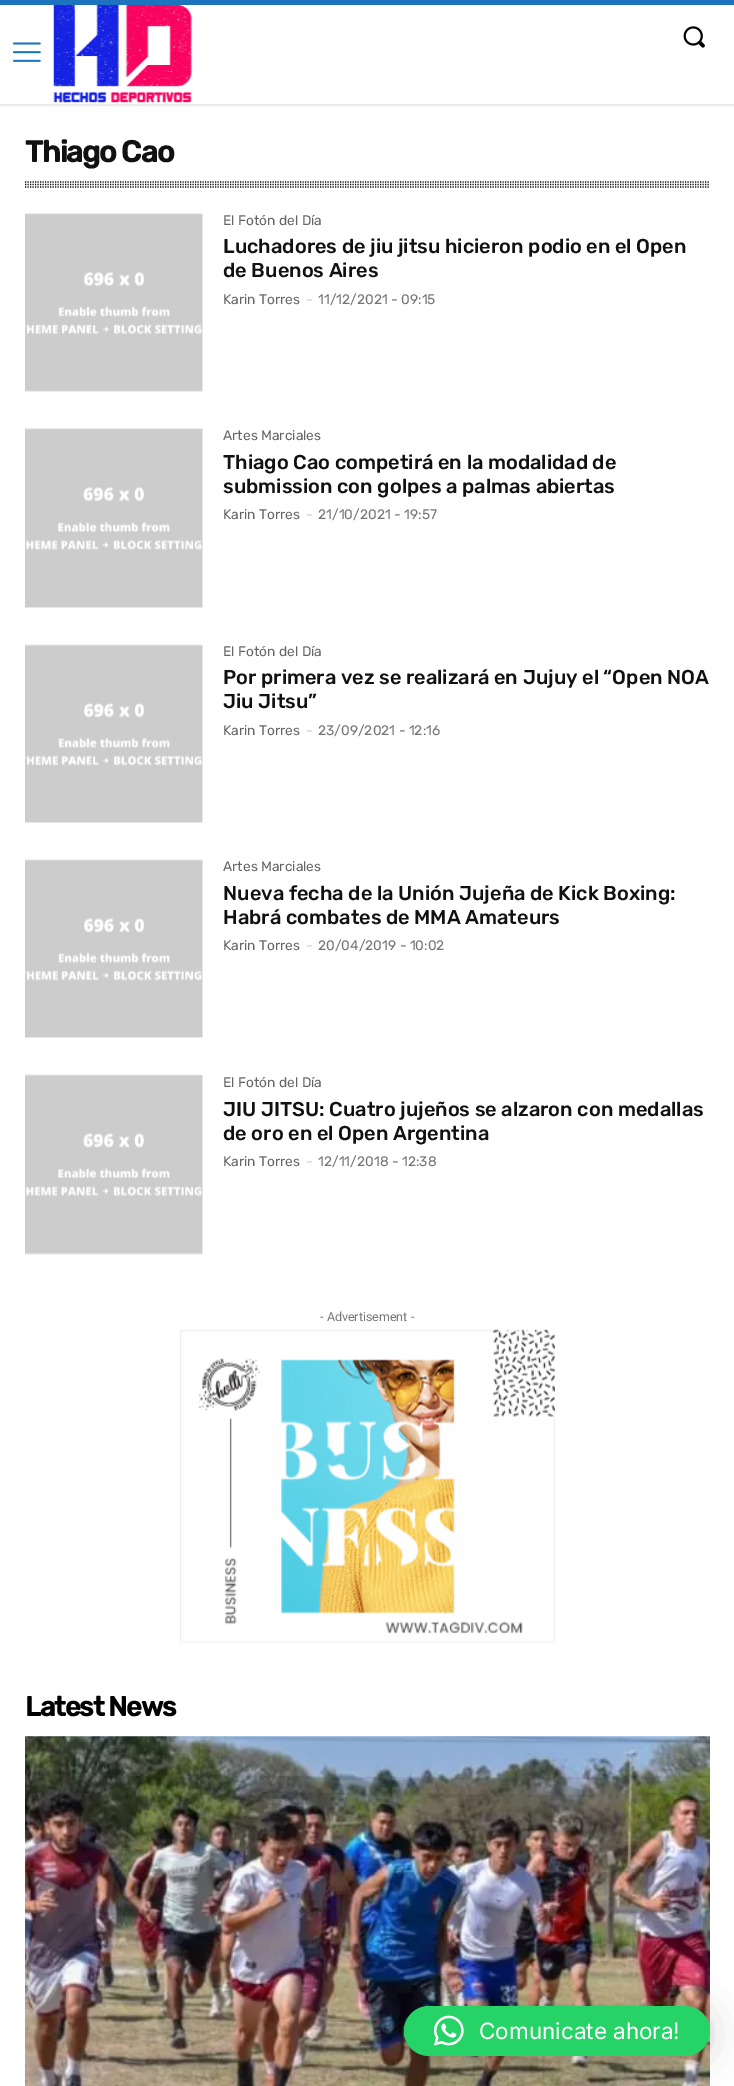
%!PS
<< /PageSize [734 2086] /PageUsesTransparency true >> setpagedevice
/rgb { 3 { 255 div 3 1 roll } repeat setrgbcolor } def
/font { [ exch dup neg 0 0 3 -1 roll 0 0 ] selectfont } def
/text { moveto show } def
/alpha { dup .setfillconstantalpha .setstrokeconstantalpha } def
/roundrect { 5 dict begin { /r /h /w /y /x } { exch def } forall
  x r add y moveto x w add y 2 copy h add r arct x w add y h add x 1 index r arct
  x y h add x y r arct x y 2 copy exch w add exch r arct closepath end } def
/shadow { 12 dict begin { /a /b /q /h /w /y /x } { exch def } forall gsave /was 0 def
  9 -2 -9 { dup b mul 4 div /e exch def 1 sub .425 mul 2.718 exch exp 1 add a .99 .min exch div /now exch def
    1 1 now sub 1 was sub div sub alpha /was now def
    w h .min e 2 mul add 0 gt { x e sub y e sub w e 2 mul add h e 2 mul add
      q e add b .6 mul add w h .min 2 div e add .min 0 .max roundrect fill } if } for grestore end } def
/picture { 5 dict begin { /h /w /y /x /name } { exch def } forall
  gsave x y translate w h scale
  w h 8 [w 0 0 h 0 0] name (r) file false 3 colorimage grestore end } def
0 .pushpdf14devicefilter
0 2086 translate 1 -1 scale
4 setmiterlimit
255 255 255 rgb
0 0 734 2086 rectfill
30 115 190 rgb
0 0 734 5 rectfill
(img_01.rgb) 53 5 139 98 picture
(img_02.rgb) 683 26 22 22 picture
(img_03.rgb) 12 42 29 20 picture
gsave
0 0 moveto 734 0 rlineto 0 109 rlineto -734 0 rlineto closepath 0 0 moveto 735 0 rlineto 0 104 rlineto -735 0 rlineto closepath eoclip newpath
0 0 0 rgb
-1 0 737 106 0 0.5 0.08 shadow
grestore
10 10 10 rgb
1.2 setlinewidth
[1.25 1.25] 0 setdash
25 182 moveto 685 0 rlineto stroke
25 184.5 moveto 685 0 rlineto stroke
25 187 moveto 685 0 rlineto stroke
(img_04.rgb) 25 213 178 179 picture
(img_05.rgb) 25 428 178 180 picture
(img_06.rgb) 25 644 178 179 picture
(img_06.rgb) 25 859 178 179 picture
(img_07.rgb) 25 1074 178 181 picture
(img_08.rgb) 180 1329 375 314 picture
(img_09.rgb) 25 1736 685 350 picture
0 0 0 rgb
404 2009 306 50 25 20 0.16 shadow
404 2008 306 50 25 4 0.06 shadow
37 211 102 rgb
404 2006 306 50 25 roundrect fill
(img_10.rgb) 433 2015 31 31 picture
/Rubik-Bold 30 font
17 17 17 rgb
25 162 moveto -1.25 0 (Thiago Cao) ashow
/Rubik-Regular 13.75 font
102 102 102 rgb
(El Fotón del Día) 223 225 text
/Rubik-Medium 20 font
17 17 17 rgb
(Luchadores de jiu jitsu hicieron podio en el Open) 223 253 text
(de Buenos Aires) 223 277 text
/Rubik-Regular 13.75 font
102 102 102 rgb
(Karin Torres) 223 304 text
204 204 204 rgb
(-) 306 304 text
118 118 118 rgb
(11/12/2021 - 09:15) 318 304 text
102 102 102 rgb
(Artes Marciales) 223 440 text
/Rubik-Medium 20 font
17 17 17 rgb
(Thiago Cao competirá en la modalidad de) 223 469 text
(submission con golpes a palmas abiertas) 223 493 text
/Rubik-Regular 13.75 font
102 102 102 rgb
(Karin Torres) 223 519 text
204 204 204 rgb
(-) 306 519 text
118 118 118 rgb
(21/10/2021 - 19:57) 318 519 text
102 102 102 rgb
(El Fotón del Día) 223 656 text
/Rubik-Medium 20 font
17 17 17 rgb
(Por primera vez se realizará en Jujuy el “Open NOA) 223 684 text
(Jiu Jitsu”) 223 708 text
/Rubik-Regular 13.75 font
102 102 102 rgb
(Karin Torres) 223 735 text
204 204 204 rgb
(-) 306 735 text
118 118 118 rgb
(23/09/2021 - 12:16) 318 735 text
102 102 102 rgb
(Artes Marciales) 223 871 text
/Rubik-Medium 20 font
17 17 17 rgb
(Nueva fecha de la Unión Jujeña de Kick Boxing:) 223 900 text
(Habrá combates de MMA Amateurs) 223 924 text
/Rubik-Regular 13.75 font
102 102 102 rgb
(Karin Torres) 223 950 text
204 204 204 rgb
(-) 306 950 text
118 118 118 rgb
(20/04/2019 - 10:02) 318 950 text
102 102 102 rgb
(El Fotón del Día) 223 1087 text
/Rubik-Medium 20 font
17 17 17 rgb
(JIU JITSU: Cuatro jujeños se alzaron con medallas) 223 1116 text
(de oro en el Open Argentina) 223 1140 text
/Rubik-Regular 13.75 font
102 102 102 rgb
(Karin Torres) 223 1166 text
204 204 204 rgb
(-) 306 1166 text
118 118 118 rgb
(12/11/2018 - 12:38) 318 1166 text
/Roboto-Regular 12.5 font
(- Advertisement -) 320 1321 text
/Rubik-Bold 27.5 font
0 0 0 rgb
25 1716 moveto -1.25 0 (Latest News) ashow
/Inter-Regular 22.5 font
255 255 255 rgb
(Comunicate ahora!) 479 2039 text
.poppdf14devicefilter showpage
